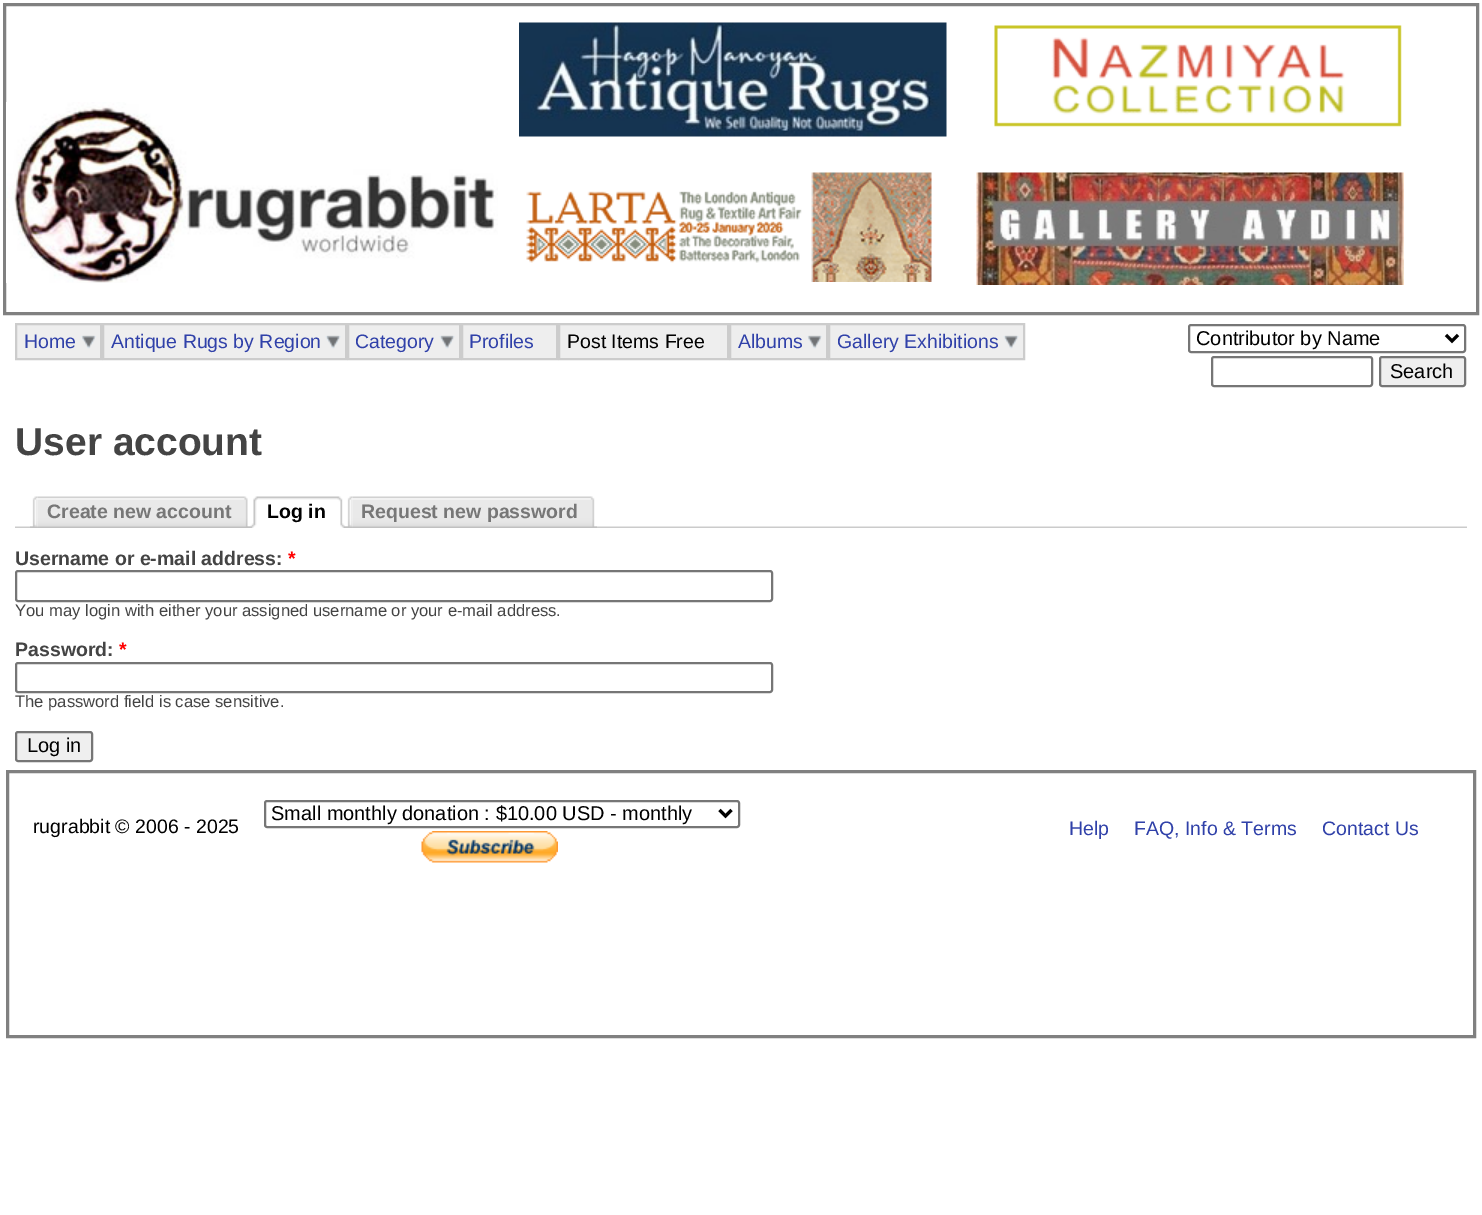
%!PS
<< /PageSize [1482 1215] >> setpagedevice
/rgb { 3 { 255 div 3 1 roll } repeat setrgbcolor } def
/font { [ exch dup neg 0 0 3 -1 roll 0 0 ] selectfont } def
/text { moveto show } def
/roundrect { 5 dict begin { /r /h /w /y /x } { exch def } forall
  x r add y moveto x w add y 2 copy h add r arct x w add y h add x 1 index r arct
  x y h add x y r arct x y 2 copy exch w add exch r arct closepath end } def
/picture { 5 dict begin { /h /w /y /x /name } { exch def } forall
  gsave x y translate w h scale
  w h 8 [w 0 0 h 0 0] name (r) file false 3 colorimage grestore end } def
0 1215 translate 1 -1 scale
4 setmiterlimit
255 255 255 rgb
0 0 1482 1215 rectfill
128 128 128 rgb
3 setlinewidth
4.5 4.5 1473 309 rectstroke
(img_01.rgb) 6 102 492 181 picture
(img_02.rgb) 519 22 428 115 picture
(img_03.rgb) 994 25 408 102 picture
(img_04.rgb) 526 172 406 110 picture
(img_05.rgb) 976 172 428 113 picture
238 238 238 rgb
17 325 83 33 rectfill
(img_06.rgb) 81 335 15 14 picture
204 204 204 rgb
2 setlinewidth
16 324 85 35 rectstroke
238 238 238 rgb
104 325 241 33 rectfill
(img_07.rgb) 325 335 16 14 picture
204 204 204 rgb
103 324 243 35 rectstroke
238 238 238 rgb
349 325 110 33 rectfill
(img_08.rgb) 439 335 16 14 picture
204 204 204 rgb
348 324 112 35 rectstroke
238 238 238 rgb
462 324 moveto 95 0 rlineto 0 35 rlineto -95 0 rlineto closepath gsave fill grestore
204 204 204 rgb
stroke
238 238 238 rgb
559 324 moveto 169 0 rlineto 0 35 rlineto -169 0 rlineto closepath gsave fill grestore
204 204 204 rgb
stroke
238 238 238 rgb
731 325 95 33 rectfill
(img_06.rgb) 807 335 15 14 picture
204 204 204 rgb
730 324 97 35 rectstroke
238 238 238 rgb
830 325 193 33 rectfill
(img_07.rgb) 1003 335 16 14 picture
204 204 204 rgb
829 324 195 35 rectstroke
118 118 118 rgb
1189 325 276 27 2 roundrect stroke
0 0 0 rgb
3 setlinewidth
1446 335 moveto 6 6 rlineto 6 -6 rlineto stroke
118 118 118 rgb
2 setlinewidth
1212 357 160 29 2 roundrect stroke
239 239 239 rgb
1380 357 85 29 2 roundrect gsave fill grestore
118 118 118 rgb
stroke
(img_09.rgb) 15 526 1452 2 picture
(img_10.rgb) 30 496 8 32 picture
(img_11.rgb) 37 496 214 32 picture
(img_12.rgb) 250 496 8 32 picture
(img_13.rgb) 258 496 87 32 picture
(img_14.rgb) 345 496 8 32 picture
(img_15.rgb) 352 496 245 32 picture
16 571 756 30 2 roundrect stroke
16 663 756 29 2 roundrect stroke
239 239 239 rgb
16 732 76 29 2 roundrect gsave fill grestore
118 118 118 rgb
stroke
128 128 128 rgb
3 setlinewidth
7.5 771.5 1467 265 rectstroke
118 118 118 rgb
2 setlinewidth
265 801 474 26 2 roundrect stroke
0 0 0 rgb
3 setlinewidth
719.5 810 moveto 6 6 rlineto 6 -6 rlineto stroke
(img_16.rgb) 421 831 137 32 picture
/LiberationSans-Regular 19.5 font
48 65 169 rgb
(Home) 24 348 text
(Antique Rugs by Region) 111 348 text
(Category) 355 348 text
(Profiles) 469 348 text
0 0 0 rgb
(Post Items Free) 567 348 text
48 65 169 rgb
(Albums) 738 348 text
(Gallery Exhibitions) 837 348 text
/LiberationSans-Regular 20 font
0 0 0 rgb
(Contributor by Name) 1196 345 text
(Search) 1390 378 text
/LiberationSans-Bold 39 font
68 68 68 rgb
(User account) 15 455 text
/LiberationSans-Bold 19.5 font
119 119 119 rgb
(Create new account) 47 518 text
0 0 0 rgb
(Log in) 267 518 text
119 119 119 rgb
(Request new password) 361 518 text
68 68 68 rgb
(Username or e-mail address:) 15 565 text
255 0 0 rgb
(*) 288 565 text
/LiberationSans-Regular 16.6 font
68 68 68 rgb
(You may login with either your assigned username or your e-mail address.) 15 616 text
/LiberationSans-Bold 19.5 font
(Password:) 15 656 text
255 0 0 rgb
(*) 119 656 text
/LiberationSans-Regular 16.6 font
68 68 68 rgb
(The password field is case sensitive.) 15 707 text
/LiberationSans-Regular 20 font
0 0 0 rgb
(Log in) 27 752 text
(Small monthly donation : $10.00 USD - monthly) 271 820 text
/LiberationSans-Regular 19.5 font
(rugrabbit © 2006 - 2025) 33 833 text
48 65 169 rgb
(Help) 1069 835 text
(FAQ, Info & Terms) 1134 835 text
(Contact Us) 1322 835 text
showpage
